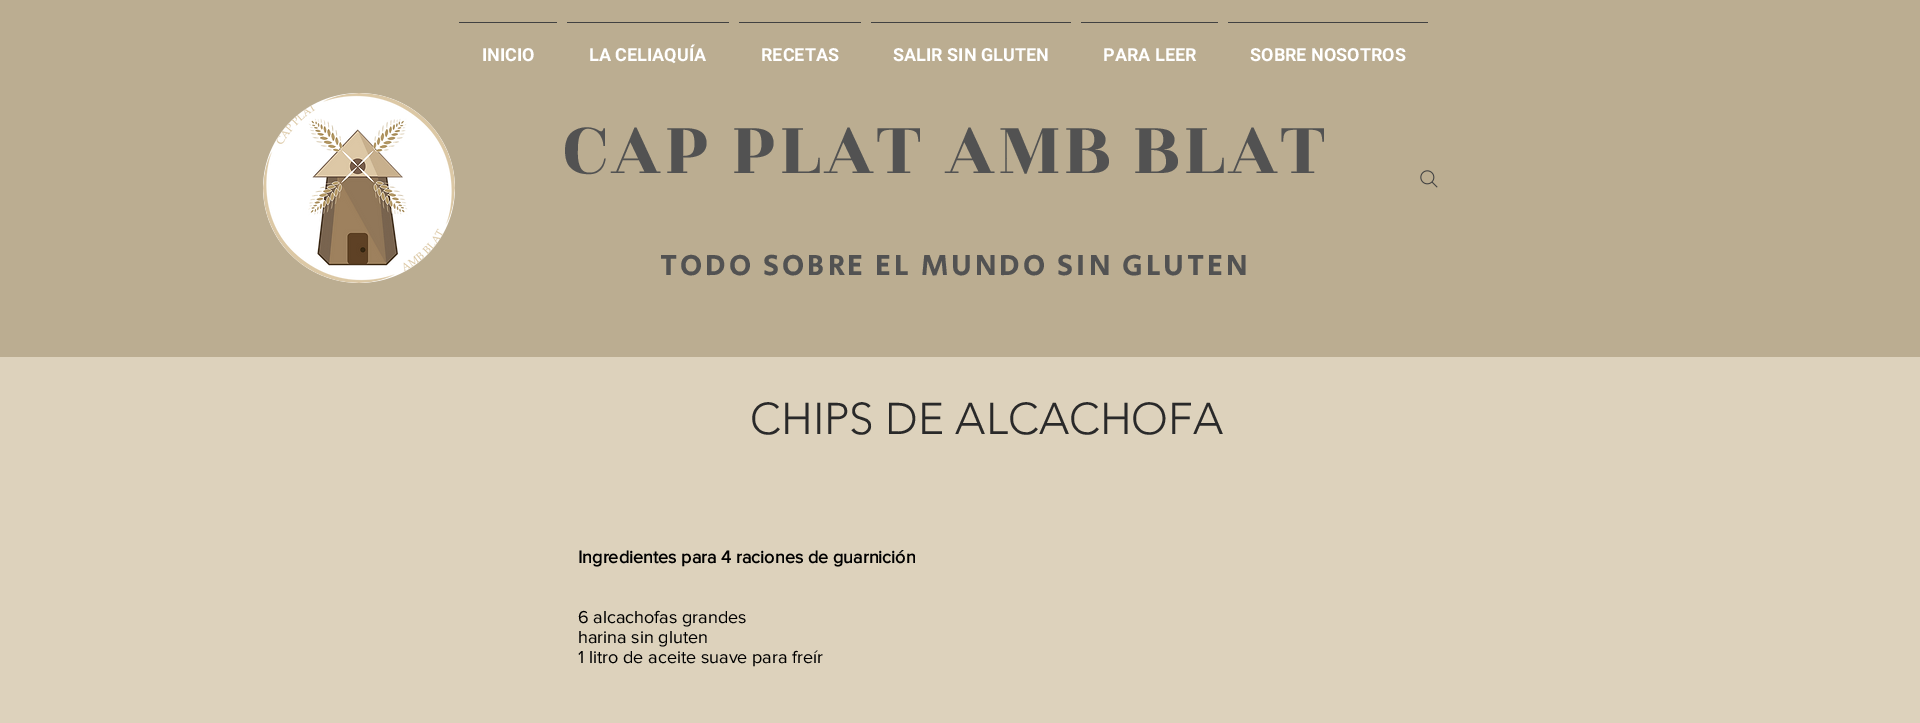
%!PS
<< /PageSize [1920 723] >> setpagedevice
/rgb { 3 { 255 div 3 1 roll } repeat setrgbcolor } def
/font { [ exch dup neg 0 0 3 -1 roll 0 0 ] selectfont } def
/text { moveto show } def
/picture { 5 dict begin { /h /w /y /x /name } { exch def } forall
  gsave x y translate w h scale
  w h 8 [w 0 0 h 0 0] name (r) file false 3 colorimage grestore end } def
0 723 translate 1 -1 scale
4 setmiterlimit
221 210 188 rgb
0 0 1920 723 rectfill
187 173 145 rgb
0 0 1920 357 rectfill
65 65 65 rgb
459 22 98 1 rectfill
567 22 162 1 rectfill
739 22 122 1 rectfill
871 22 200 1 rectfill
1081 22 137 1 rectfill
1228 22 200 1 rectfill
255 255 255 rgb
359 93 moveto 53 0 96 42.5 96 95 rcurveto 0 52.5 -43 95 -96 95 rcurveto -53 0 -96 -42.5 -96 -95 rcurveto 0 -52.5 43 -95 96 -95 rcurveto closepath fill
(img_01.rgb) 263 93 192 190 picture
(img_02.rgb) 1420 170 18 18 picture
/Heebo-Bold 18 font
(INICIO) 482 61 text
(LA CELIAQUÍA) 589 61 text
(RECETAS) 761 61 text
(SALIR SIN GLUTEN) 893 61 text
(PARA LEER) 1103 61 text
(SOBRE NOSOTROS) 1250 61 text
/RozhaOne-Regular 80 font
82 82 82 rgb
563 173 moveto 2.4 0 (CAP PLAT AMB BLAT) ashow
/SecularOne-Regular 30 font
660 275 moveto 3 0 (TODO SOBRE EL MUNDO SIN GLUTEN) ashow
/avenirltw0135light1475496-Light 44 font
41 41 41 rgb
(CHIPS DE ALCACHOFA) 750 434 text
/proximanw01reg-Bold 18 font
0 0 0 rgb
(Ingredientes para 4 raciones de guarnición) 578 563 text
/proximanw01reg-Regular 18 font
(6 alcachofas grandes) 578 623 text
(harina sin gluten) 578 643 text
(1 litro de aceite suave para freír) 578 663 text
showpage
